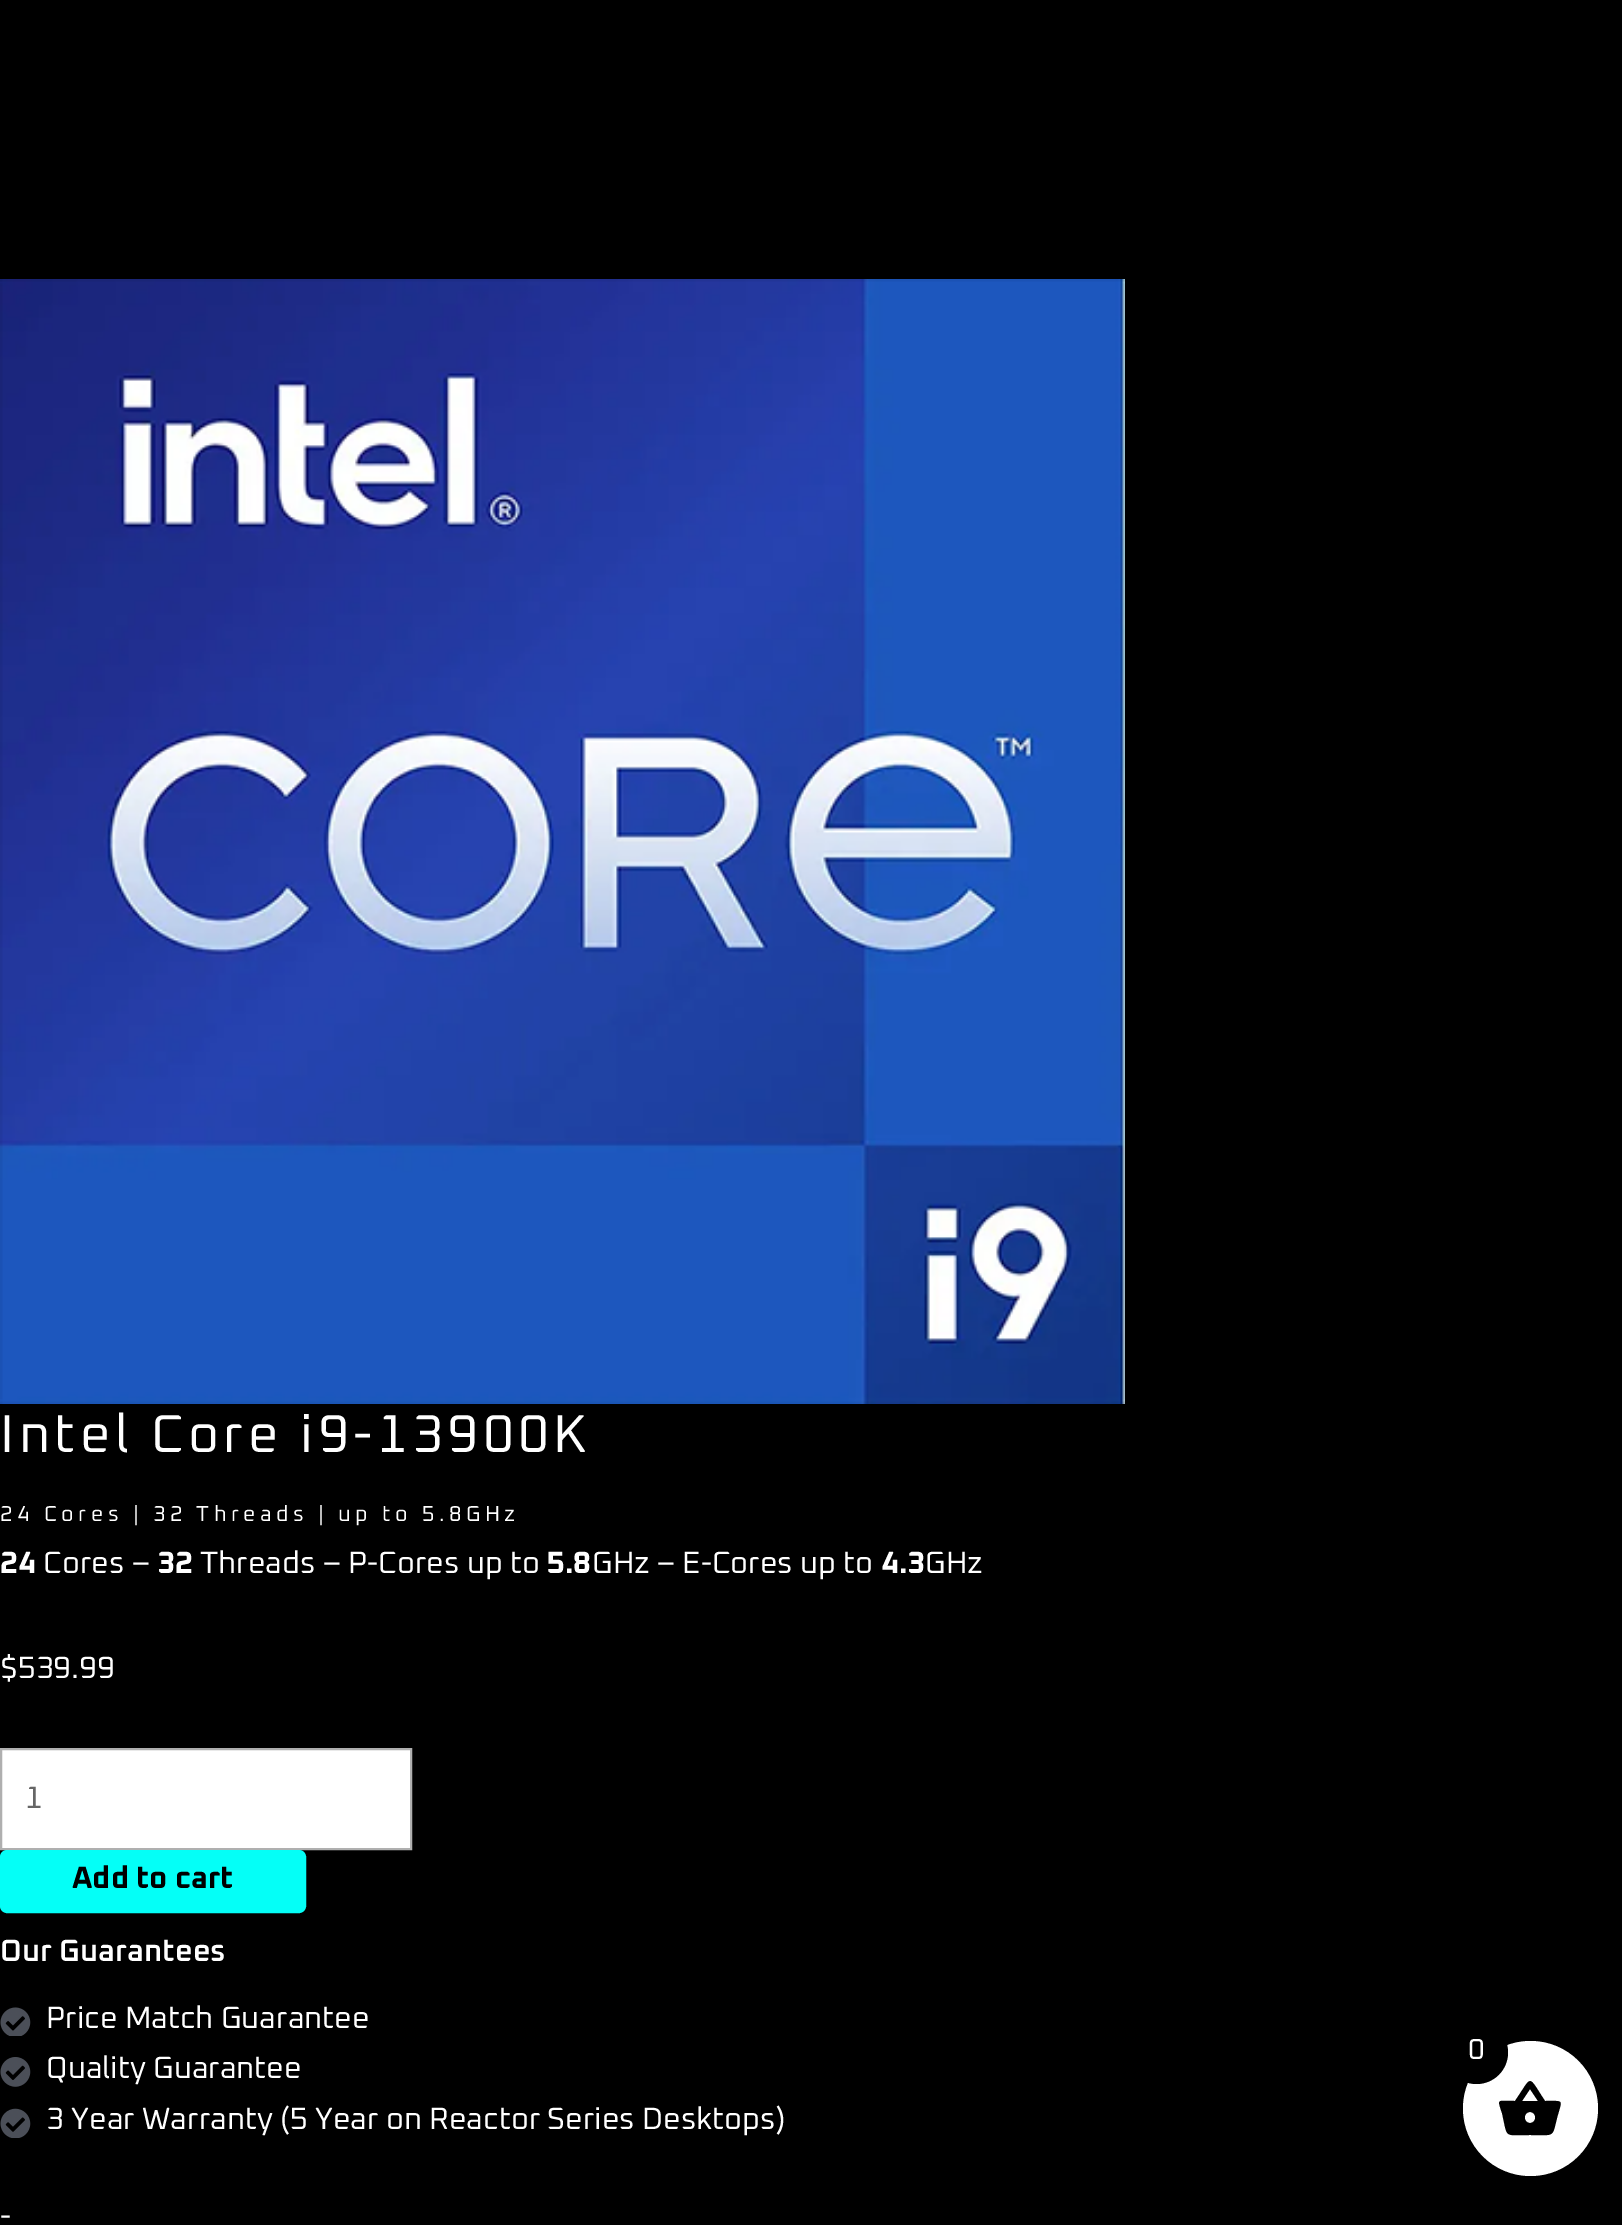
%!PS
<< /PageSize [1622 2225] >> setpagedevice
/rgb { 3 { 255 div 3 1 roll } repeat setrgbcolor } def
/font { [ exch dup neg 0 0 3 -1 roll 0 0 ] selectfont } def
/text { moveto show } def
/circle { newpath 0 360 arc closepath } def
/roundrect { 5 dict begin { /r /h /w /y /x } { exch def } forall
  x r add y moveto x w add y 2 copy h add r arct x w add y h add x 1 index r arct
  x y h add x y r arct x y 2 copy exch w add exch r arct closepath end } def
/picture { 5 dict begin { /h /w /y /x /name } { exch def } forall
  gsave x y translate w h scale
  w h 8 [w 0 0 h 0 0] name (r) file false 3 colorimage grestore end } def
0 2225 translate 1 -1 scale
4 setmiterlimit
0 0 0 rgb
0 0 1622 2225 rectfill
(img_01.rgb) 0 279 1125 1125 picture
255 255 255 rgb
1 1749 moveto 410 0 rlineto 0 100 rlineto -410 0 rlineto closepath gsave fill grestore
175 175 175 rgb
2 setlinewidth
stroke
4 255 247 rgb
2.5 1852.5 301 58 4.5 roundrect gsave fill grestore
5 setlinewidth
stroke
(img_02.rgb) 0 2007 31 29 picture
(img_03.rgb) 0 2057 31 30 picture
(img_04.rgb) 0 2108 31 30 picture
255 255 255 rgb
1530.5 2108.5 67.5 circle fill
0 0 0 rgb
1530 2123 moveto 7 0 7 -11 0 -11 rcurveto -7 0 -7 11 0 11 rcurveto closepath 1522 2101 moveto 16 0 rlineto -8 -12 rlineto closepath 1545 2101 moveto 20 0 17 -2 12 17 rcurveto -5 20 -2 17 -27 17 rcurveto -27 0 -22 4 -28 -22 rcurveto -5 -15 -5 -12 13 -12 rcurveto 18 -26 12 -27 30 0 rcurveto closepath fill
1476.5 2052.5 31.5 circle fill
/Oxanium-Regular 53.4 font
255 255 255 rgb
0 1452 moveto 4.5 0 (Intel Core i9-13900K) ashow
/Oxanium-Regular 21.55 font
0 1521 moveto 4.5 0 (24 Cores | 32 Threads | up to 5.8GHz) ashow
/Oxanium-Bold 30.75 font
(24) 0 1573 text
/Oxanium-Regular 30.75 font
(Cores –) 43 1573 text
/Oxanium-Bold 30.75 font
(32) 157 1573 text
/Oxanium-Regular 30.75 font
(Threads – P-Cores up to) 200 1573 text
/Oxanium-Bold 30.75 font
(5.8) 547 1573 text
/Oxanium-Regular 30.75 font
(GHz – E-Cores up to) 592 1573 text
/Oxanium-Bold 30.75 font
(4.3) 881 1573 text
/Oxanium-Regular 30.75 font
(GHz) 925 1573 text
($539.99) 0 1678 text
102 102 102 rgb
(1) 25 1808 text
/Oxanium-Bold 30.75 font
0 0 0 rgb
(Add to cart) 72 1888 text
/Oxanium-SemiBold 30.75 font
255 255 255 rgb
(Our Guarantees) 0 1961 text
/Oxanium-Regular 30.75 font
(Price Match Guarantee) 46 2028 text
(Quality Guarantee) 46 2078 text
(3 Year Warranty \(5 Year on Reactor Series Desktops\)) 46 2129 text
(-) 0 2226 text
/Oxanium-Regular 29 font
(0) 1468 2059 text
showpage
